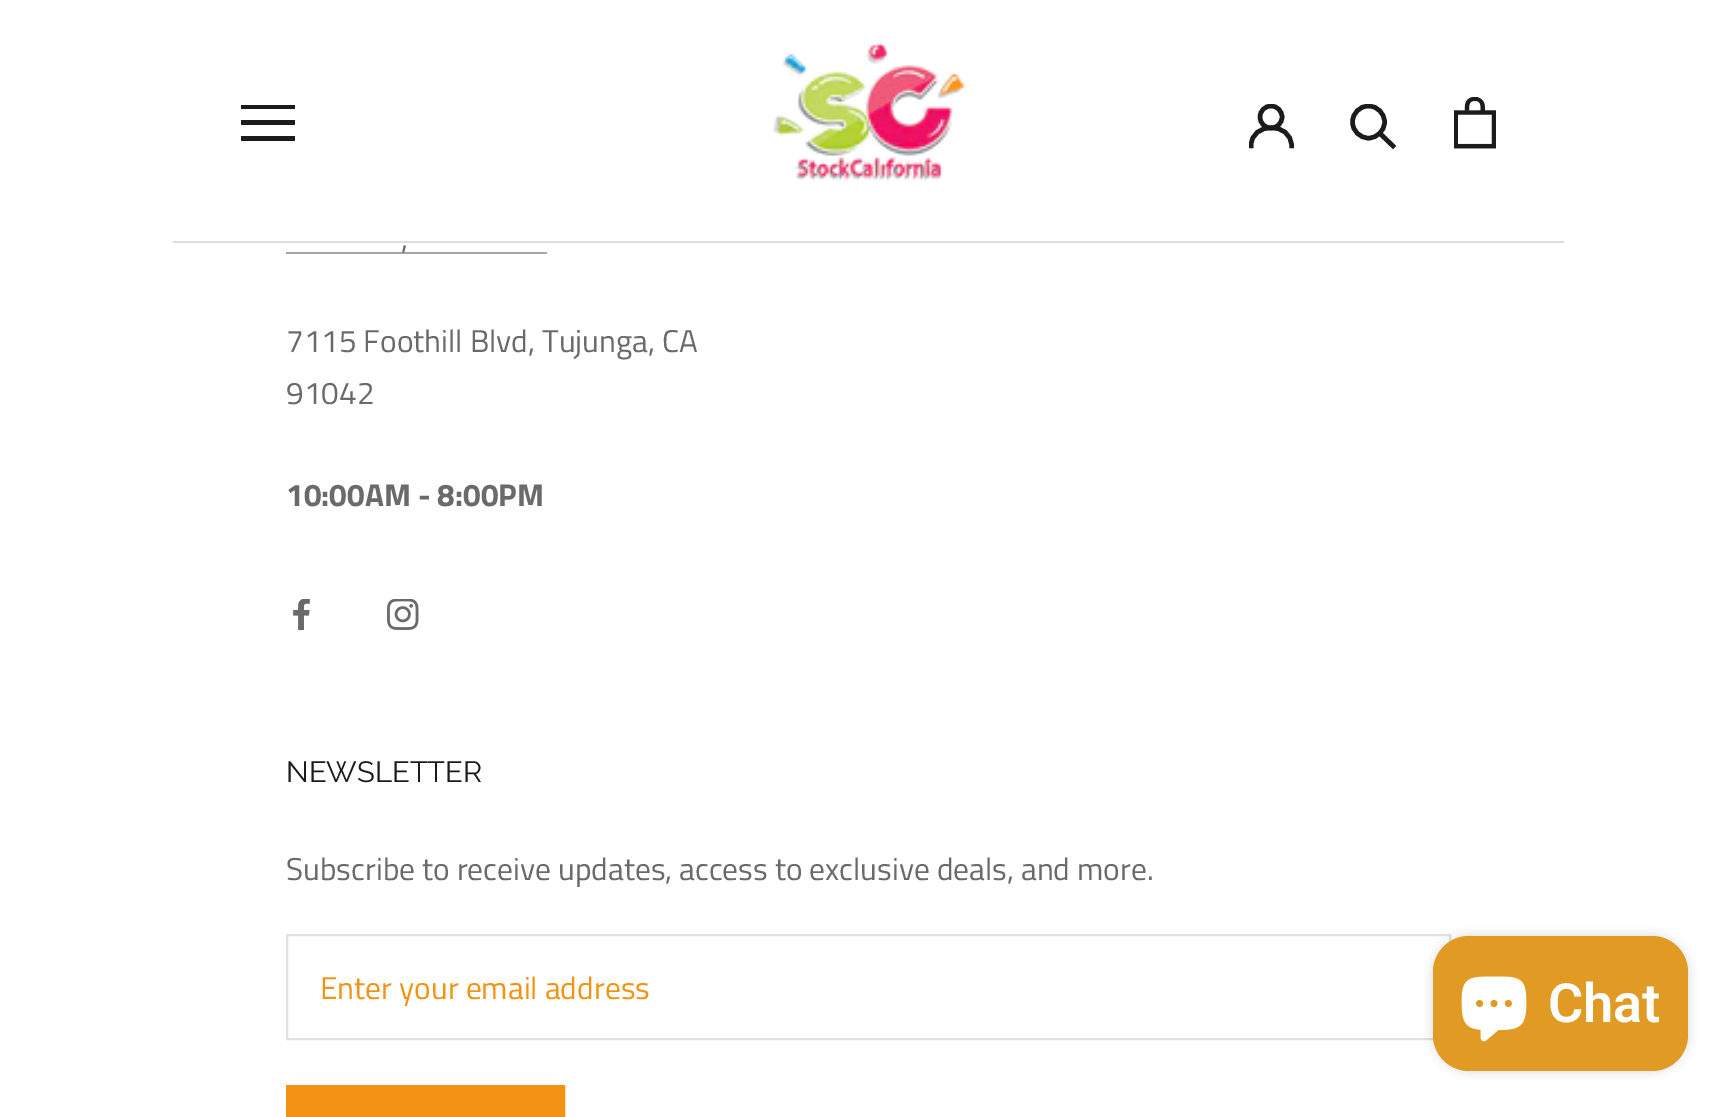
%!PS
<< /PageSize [1735 1117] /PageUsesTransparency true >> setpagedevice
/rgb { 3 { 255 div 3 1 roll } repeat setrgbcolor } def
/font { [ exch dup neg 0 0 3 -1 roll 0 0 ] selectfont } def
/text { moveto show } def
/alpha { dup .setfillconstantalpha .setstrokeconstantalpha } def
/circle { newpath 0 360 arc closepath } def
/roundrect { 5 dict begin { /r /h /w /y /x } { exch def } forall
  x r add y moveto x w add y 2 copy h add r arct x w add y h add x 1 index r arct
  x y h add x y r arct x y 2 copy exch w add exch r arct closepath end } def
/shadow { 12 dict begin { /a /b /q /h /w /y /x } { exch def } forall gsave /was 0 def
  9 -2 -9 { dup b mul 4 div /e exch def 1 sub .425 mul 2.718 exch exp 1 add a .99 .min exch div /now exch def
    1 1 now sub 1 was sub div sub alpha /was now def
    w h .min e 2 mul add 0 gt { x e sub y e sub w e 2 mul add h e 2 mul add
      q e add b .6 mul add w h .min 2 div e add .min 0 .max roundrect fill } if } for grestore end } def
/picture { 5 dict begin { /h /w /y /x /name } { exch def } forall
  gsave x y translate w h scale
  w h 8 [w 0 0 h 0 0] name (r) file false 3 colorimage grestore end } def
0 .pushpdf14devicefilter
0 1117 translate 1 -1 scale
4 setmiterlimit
255 255 255 rgb
0 0 1735 1117 rectfill
221 221 221 rgb
173 241 1391 2 rectfill
28 27 27 rgb
241 141 moveto 0 -5 rlineto 54 0 rlineto 0 5 rlineto closepath 241 120 moveto 54 0 rlineto 0 5 rlineto -54 0 rlineto closepath 241 105 moveto 54 0 rlineto 0 4 rlineto -54 0 rlineto closepath fill
(img_01.rgb) 773 42 193 139 picture
gsave
1249 104 45 45 rectclip
4.5 setlinewidth
2 setlinecap
1251 146 moveto 0 -24.5 40.5 -24.5 40.5 0 rcurveto stroke
0 setlinecap
1271 117 11 circle stroke
grestore
4.5 setlinewidth
2 setlinecap
1393 146 moveto -13 -12.5 rlineto stroke
gsave
1350 104 47 47 rectclip
0 setlinecap
1368.5 122 16 circle stroke
grestore
(img_02.rgb) 1454 97 42 52 picture
166 166 166 rgb
286 252 261 2 rectfill
(img_03.rgb) 293 599 17 31 picture
(img_04.rgb) 387 599 32 31 picture
223 226 229 rgb
2 setlinewidth
0 setlinecap
287 935 1163 104 rectstroke
243 147 20 rgb
287 1086 277 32 rectstroke
288 1087 275 30 rectfill
0 0 0 rgb
1433 936 255 135 36 5.5 0.15 shadow
225 154 36 rgb
1433 936 255 135 36 roundrect fill
(img_05.rgb) 1461 976 66 66 picture
/TitilliumWeb-Regular 31.5 font
106 106 106 rgb
(,) 401 249 text
(7115 Foothill Blvd, Tujunga, CA) 286 352 text
(91042) 286 404 text
/TitilliumWeb-Bold 31.5 font
(10:00AM - 8:00PM) 286 506 text
/Raleway-Regular 29.25 font
28 27 27 rgb
(NEWSLETTER) 286 782 text
/TitilliumWeb-Regular 31.5 font
106 106 106 rgb
(Subscribe to receive updates, access to exclusive deals, and more.) 286 880 text
243 147 20 rgb
(Enter your email address) 320 999 text
/Roboto-SemiBold 54 font
255 255 255 rgb
(Chat) 1548 1022 text
.poppdf14devicefilter showpage
